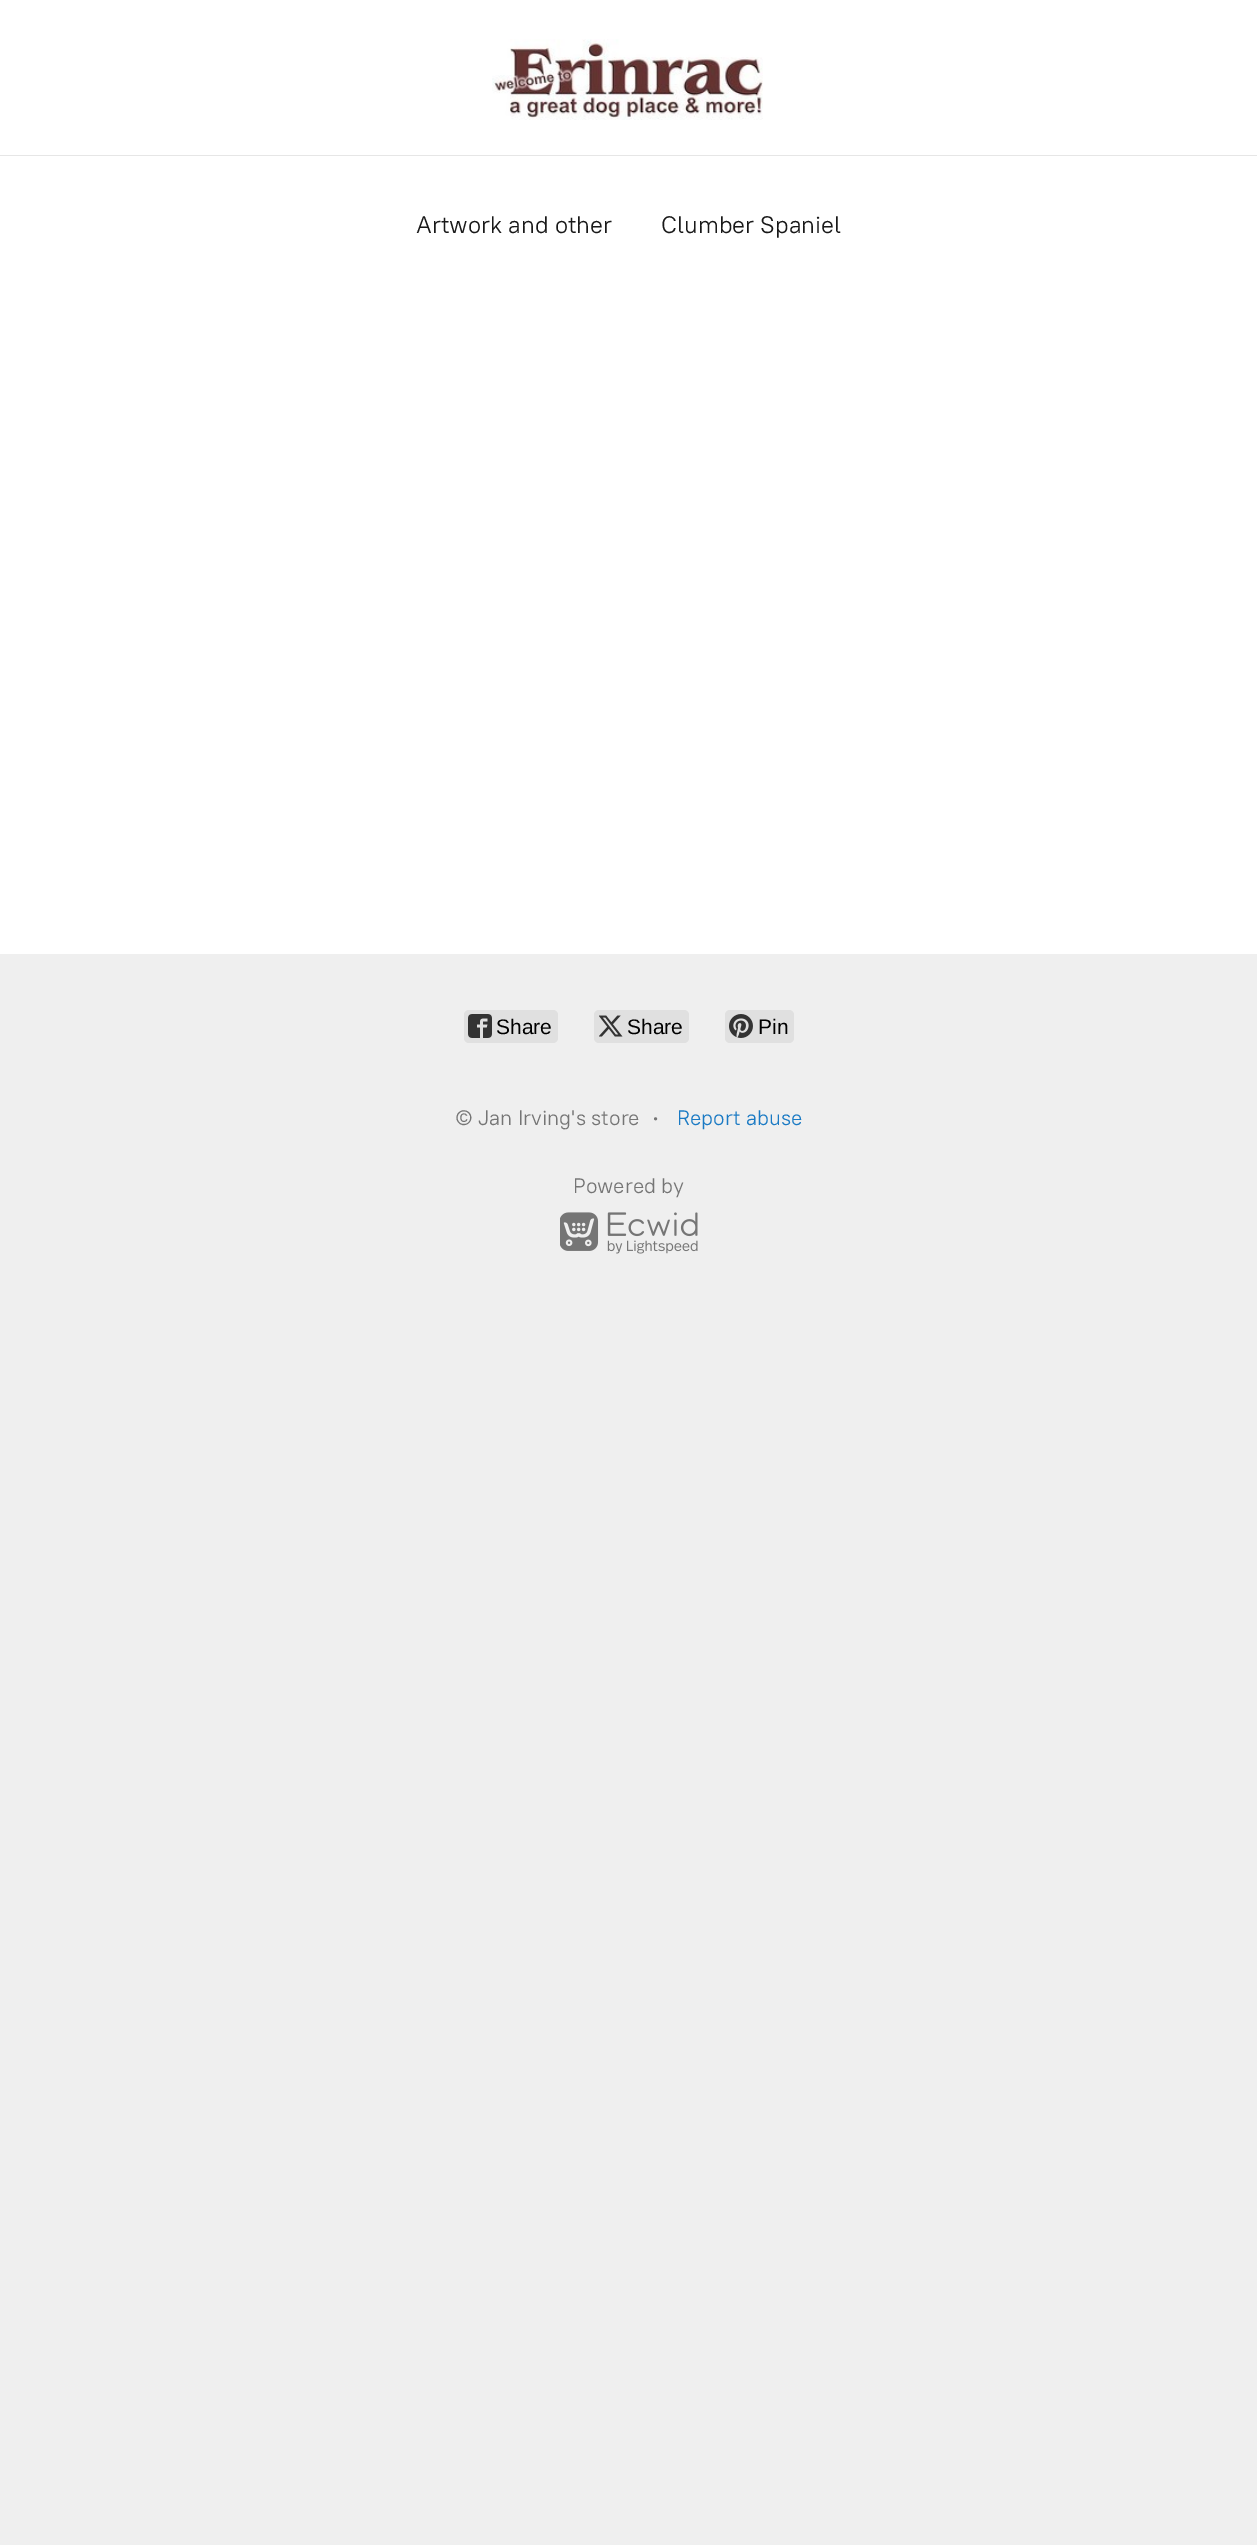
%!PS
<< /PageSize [1257 2545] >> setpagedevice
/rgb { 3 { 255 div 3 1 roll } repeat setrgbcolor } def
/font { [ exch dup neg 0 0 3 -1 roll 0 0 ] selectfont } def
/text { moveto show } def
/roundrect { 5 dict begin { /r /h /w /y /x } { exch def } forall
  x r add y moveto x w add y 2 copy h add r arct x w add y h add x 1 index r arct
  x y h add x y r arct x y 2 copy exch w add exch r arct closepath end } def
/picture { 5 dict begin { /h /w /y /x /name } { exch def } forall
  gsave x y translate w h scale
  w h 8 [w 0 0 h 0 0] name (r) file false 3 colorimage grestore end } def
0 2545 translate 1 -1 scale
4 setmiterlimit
239 239 239 rgb
0 0 1257 2545 rectfill
255 255 255 rgb
0 0 1257 954 rectfill
230 230 230 rgb
0 155 1257 1 rectfill
(img_01.rgb) 492 39 271 81 picture
224 224 224 rgb
464 1010 94 33 5 roundrect fill
(img_02.rgb) 468 1014 24 24 picture
594 1010 95 33 5 roundrect fill
(img_03.rgb) 599 1015 24 22 picture
725 1010 69 33 5 roundrect fill
(img_04.rgb) 729 1014 24 24 picture
(img_05.rgb) 560 1212 138 42 picture
/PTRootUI-Regular 24 font
25 25 25 rgb
(Artwork and other) 416 233 text
(Clumber Spaniel) 661 233 text
/LiberationSans-Regular 21 font
0 0 0 rgb
(Share) 496 1034 text
(Share) 627 1034 text
(Pin) 758 1034 text
/PTRootUI-Regular 21 font
117 117 117 rgb
(© Jan Irving's store) 455 1125 text
/PTRootUI-Medium 24 font
(·) 652 1125 text
/PTRootUI-Regular 21 font
26 122 196 rgb
(Report abuse) 677 1125 text
117 117 117 rgb
(Powered by) 573 1193 text
showpage
